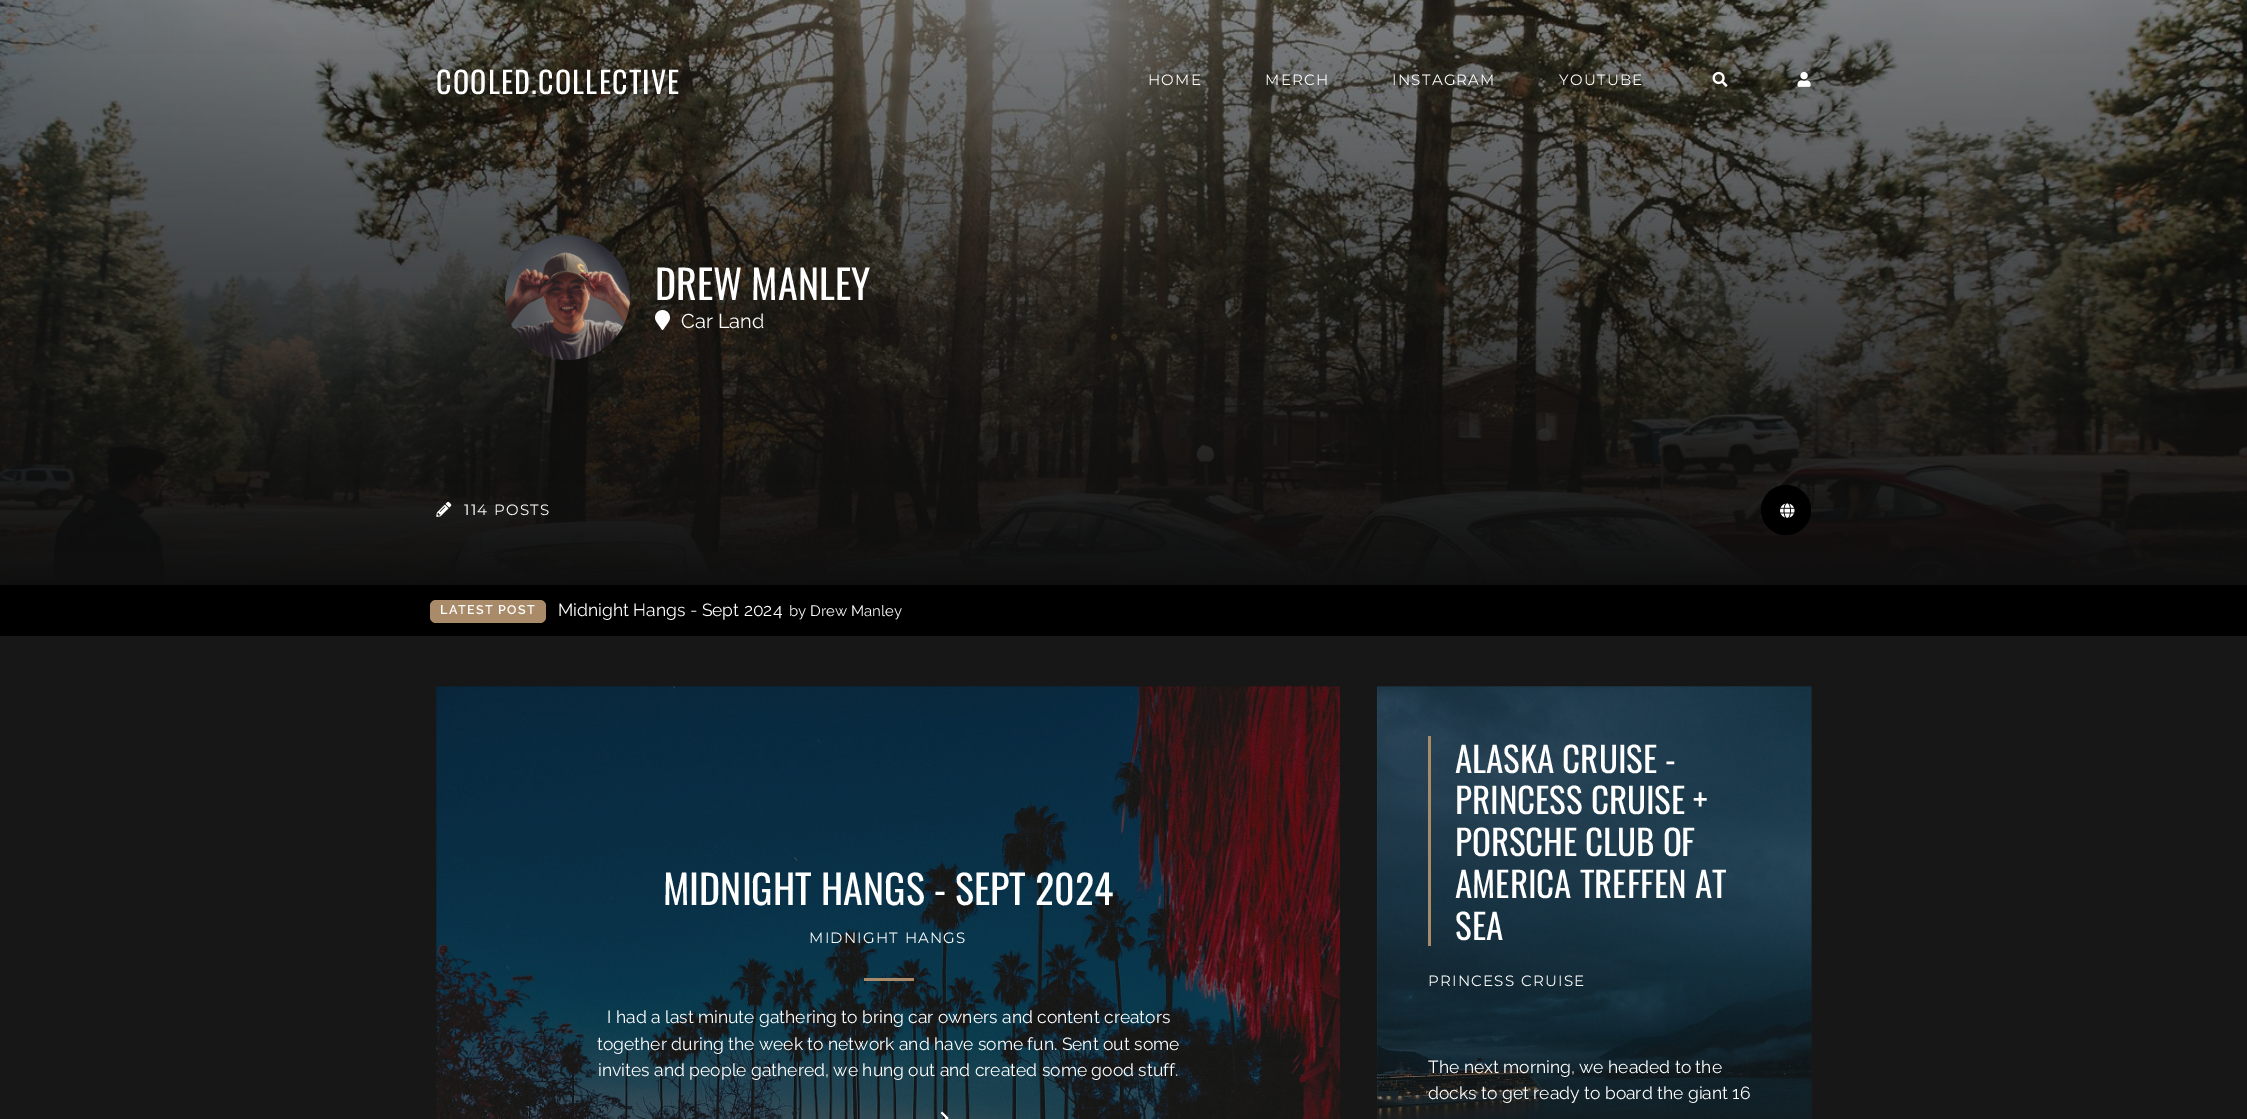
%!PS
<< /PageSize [2247 1119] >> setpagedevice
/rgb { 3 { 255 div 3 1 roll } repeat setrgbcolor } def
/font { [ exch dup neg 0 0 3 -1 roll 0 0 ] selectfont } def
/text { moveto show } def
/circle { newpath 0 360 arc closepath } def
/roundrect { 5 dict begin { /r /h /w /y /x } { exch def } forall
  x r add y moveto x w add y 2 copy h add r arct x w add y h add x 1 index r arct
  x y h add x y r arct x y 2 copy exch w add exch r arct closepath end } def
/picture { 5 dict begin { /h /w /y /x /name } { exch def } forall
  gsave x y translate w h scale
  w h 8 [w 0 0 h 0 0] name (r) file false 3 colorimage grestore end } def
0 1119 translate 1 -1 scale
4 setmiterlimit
23 23 23 rgb
0 0 2247 1119 rectfill
19 19 19 rgb
436 686 904 433 rectfill
(img_03.rgb) 0 0 2247 585 picture
(img_01.rgb) 1712 71 16 16 picture
(img_02.rgb) 1797 71 14 16 picture
(img_04.rgb) 505 235 125 125 picture
(img_05.rgb) 655 310 15 20 picture
(img_06.rgb) 436 501 16 16 picture
0 0 0 rgb
1786 510 25 circle fill
(img_07.rgb) 1780 503 15 15 picture
0 585 2247 51 rectfill
169 139 105 rgb
430 600 116 23 6 roundrect fill
(img_08.rgb) 436 686 904 433 picture
864 978 50 3 rectfill
(img_09.rgb) 940 1111 9 8 picture
(img_10.rgb) 1377 686 435 433 picture
1428 736 3 210 rectfill
/Oswald-Regular 30 font
255 255 255 rgb
436 94 moveto 1.25 0 (COOLED.COLLECTIVE) ashow
/Montserrat-Regular 15 font
1148 85 moveto 1.25 0 (HOME) ashow
1265 85 moveto 1.25 0 (MERCH) ashow
1392 85 moveto 1.25 0 (INSTAGRAM) ashow
1559 85 moveto 1.25 0 (YOUTUBE) ashow
/Oswald-Regular 40 font
(DREW MANLEY) 655 300 text
/Raleway-Regular 20 font
(Car Land) 681 328 text
/Montserrat-Regular 15 font
464 515 moveto 1.25 0 (114 POSTS) ashow
/Raleway-SemiBold 12.5 font
440 614 moveto 1.25 0 (LATEST POST) ashow
/Raleway-Regular 17.5 font
(Midnight Hangs - Sept 2024) 558 616 text
/Raleway-Regular 15 font
(by Drew Manley) 789 616 text
/Oswald-Regular 40 font
(MIDNIGHT HANGS - SEPT 2024) 663 905 text
/Montserrat-Regular 15 font
809 943 moveto 1.25 0 (MIDNIGHT HANGS) ashow
/Raleway-Regular 17.5 font
(I had a last minute gathering to bring car owners and content creators) 607 1023 text
(together during the week to network and have some fun. Sent out some) 597 1050 text
(invites and people gathered, we hung out and created some good stuff.) 598 1076 text
/Oswald-Regular 35 font
(ALASKA CRUISE -) 1455 773 text
(PRINCESS CRUISE +) 1455 814 text
(PORSCHE CLUB OF) 1455 856 text
(AMERICA TREFFEN AT) 1455 898 text
(SEA) 1455 940 text
/Montserrat-Regular 15 font
1428 986 moveto 1.25 0 (PRINCESS CRUISE) ashow
/Raleway-Regular 17.5 font
(The next morning, we headed to the) 1428 1073 text
(docks to get ready to board the giant 16) 1428 1099 text
showpage
